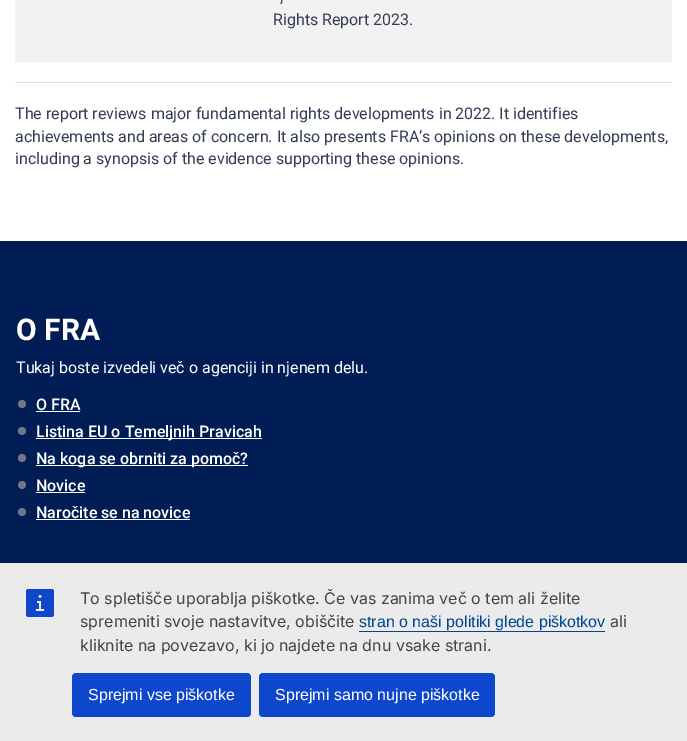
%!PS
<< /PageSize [687 741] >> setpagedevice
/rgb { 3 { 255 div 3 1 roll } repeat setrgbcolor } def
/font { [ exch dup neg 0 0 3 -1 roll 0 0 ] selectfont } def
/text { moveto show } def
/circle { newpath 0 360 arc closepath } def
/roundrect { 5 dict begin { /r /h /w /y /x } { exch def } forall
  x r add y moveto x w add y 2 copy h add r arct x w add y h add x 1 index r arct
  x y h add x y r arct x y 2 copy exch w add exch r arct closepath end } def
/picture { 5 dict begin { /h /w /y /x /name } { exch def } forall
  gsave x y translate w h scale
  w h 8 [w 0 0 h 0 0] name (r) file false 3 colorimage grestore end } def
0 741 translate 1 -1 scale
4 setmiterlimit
255 255 255 rgb
0 0 687 741 rectfill
242 242 242 rgb
15 0 657 62 rectfill
220 222 227 rgb
15 82 657 1 rectfill
1 29 85 rgb
0 241 687 322 rectfill
110 118 135 rgb
22 404 4 circle fill
255 255 255 rgb
36 411 44 1 rectfill
110 118 135 rgb
22 431 4 circle fill
255 255 255 rgb
36 438 226 1 rectfill
110 118 135 rgb
22 458 4 circle fill
255 255 255 rgb
36 465 212 1 rectfill
110 118 135 rgb
22 485 4 circle fill
255 255 255 rgb
36 492 49 1 rectfill
110 118 135 rgb
22 512 4 circle fill
255 255 255 rgb
36 519 154 1 rectfill
235 235 235 rgb
0 563 687 178 rectfill
(img_01.rgb) 26 589 28 28 picture
0 68 148 rgb
359 631 246 1 rectfill
14 71 203 rgb
72 673 179 44 4 roundrect fill
259 673 236 44 4 roundrect fill
/Roboto-Regular 16 font
52 61 85 rgb
(,) 280 2 text
(Rights Report 2023.) 273 25 text
(The report reviews major fundamental rights developments in 2022. It identifies) 15 119 text
(achievements and areas of concern. It also presents FRA’s opinions on these developments,) 15 142 text
(including a synopsis of the evidence supporting these opinions.) 15 164 text
/Roboto-Bold 30 font
255 255 255 rgb
(O FRA) 16 340 text
/Roboto-Regular 16 font
(Tukaj boste izvedeli več o agenciji in njenem delu.) 16 373 text
/Roboto-Medium 16 font
(O FRA) 36 410 text
(Listina EU o Temeljnih Pravicah) 36 437 text
(Na koga se obrniti za pomoč?) 36 464 text
(Novice) 36 491 text
(Naročite se na novice) 36 518 text
/Inter-Regular 16 font
68 68 68 rgb
(To spletišče uporablja piškotke. Če vas zanima več o tem ali želite) 80 604 text
(spremeniti svoje nastavitve, obiščite) 80 627 text
/LiberationSans-Regular 16 font
0 68 148 rgb
(stran o naši politiki glede piškotkov) 359 627 text
/Inter-Regular 16 font
68 68 68 rgb
(ali) 610 627 text
(kliknite na povezavo, ki jo najdete na dnu vsake strani.) 80 651 text
/LiberationSans-Regular 16 font
255 255 255 rgb
(Sprejmi vse piškotke) 88 700 text
(Sprejmi samo nujne piškotke) 275 700 text
showpage
